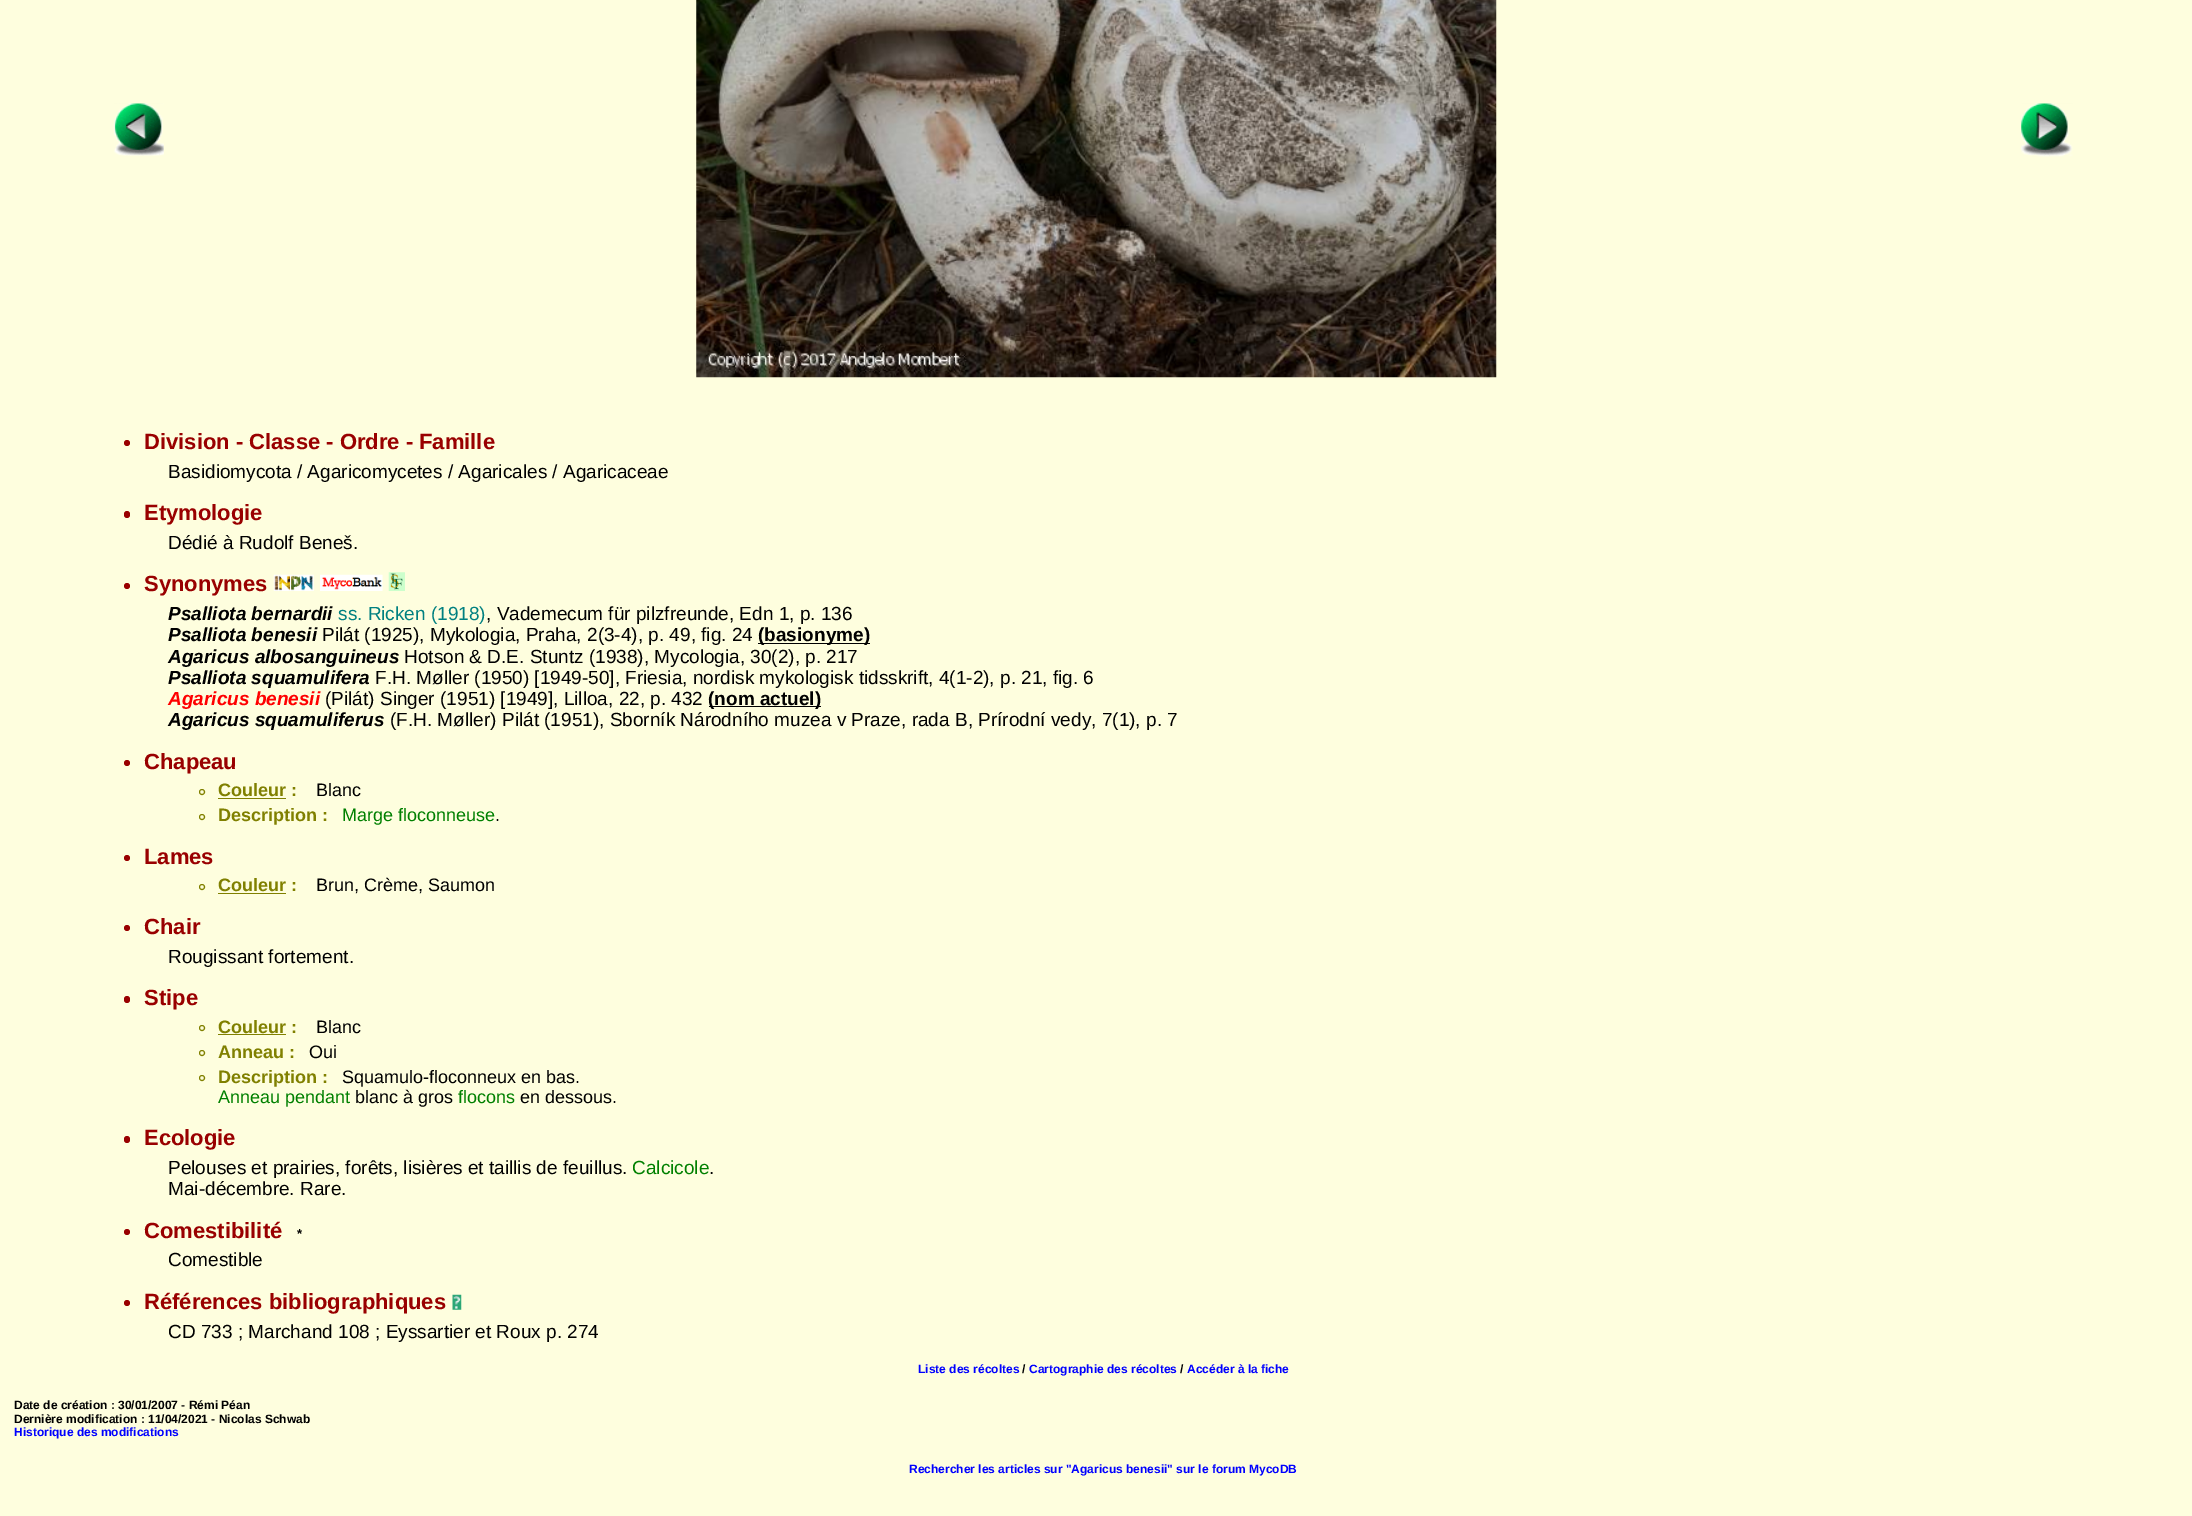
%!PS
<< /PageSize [2192 1516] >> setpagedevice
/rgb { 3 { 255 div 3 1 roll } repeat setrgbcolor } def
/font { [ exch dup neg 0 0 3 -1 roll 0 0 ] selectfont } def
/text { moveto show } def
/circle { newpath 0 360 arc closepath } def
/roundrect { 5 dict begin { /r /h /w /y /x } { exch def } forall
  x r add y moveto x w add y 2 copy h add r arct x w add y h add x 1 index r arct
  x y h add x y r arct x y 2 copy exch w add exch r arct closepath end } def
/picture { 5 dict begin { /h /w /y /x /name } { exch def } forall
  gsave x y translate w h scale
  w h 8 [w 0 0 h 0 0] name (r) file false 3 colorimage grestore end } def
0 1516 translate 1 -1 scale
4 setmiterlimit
254 254 222 rgb
0 0 2192 1516 rectfill
(img_01.rgb) 113 103 51 53 picture
(img_02.rgb) 696 0 801 378 picture
(img_03.rgb) 2021 103 52 54 picture
153 0 0 rgb
127 443 3 circle fill
124 511 6 7 3 roundrect fill
127 586 3 circle fill
(img_04.rgb) 273 574 41 17 picture
(img_05.rgb) 320 574 63 17 picture
(img_06.rgb) 388 572 17 19 picture
0 0 0 rgb
758 643 112 1 rectfill
709 706 112 1 rectfill
153 0 0 rgb
127 763 3 circle fill
128 128 0 rgb
202 792 2.5 circle stroke
218 798 68 1 rectfill
202 817 2.5 circle stroke
153 0 0 rgb
127 858 3 circle fill
128 128 0 rgb
202 887 2.5 circle stroke
218 893 68 1 rectfill
153 0 0 rgb
127 928 3 circle fill
124 996 6 7 3 roundrect fill
128 128 0 rgb
202 1028 2.5 circle stroke
218 1034 68 1 rectfill
202 1053 2.5 circle stroke
202 1078 2.5 circle stroke
153 0 0 rgb
124 1136 6 7 3 roundrect fill
127 1232 3 circle fill
127 1303 3 circle fill
(img_07.rgb) 452 1294 10 16 picture
/LiberationSans-Bold 22 font
(Division - Classe - Ordre - Famille) 144 449 text
/LiberationSans-Regular 19 font
0 0 0 rgb
(Basidiomycota / Agaricomycetes / Agaricales / Agaricaceae) 168 478 text
/LiberationSans-Bold 22 font
153 0 0 rgb
(Etymologie) 144 520 text
/LiberationSans-Regular 19 font
0 0 0 rgb
(Dédié à Rudolf Beneš.) 168 549 text
/LiberationSans-Bold 22 font
153 0 0 rgb
(Synonymes) 144 591 text
/LiberationSans-BoldItalic 19 font
0 0 0 rgb
(Psalliota bernardii) 168 620 text
/LiberationSans-Regular 19 font
0 128 128 rgb
(ss. Ricken \(1918\)) 338 620 text
0 0 0 rgb
(, Vademecum für pilzfreunde, Edn 1, p. 136) 486 620 text
/LiberationSans-BoldItalic 19 font
(Psalliota benesii) 168 641 text
/LiberationSans-Regular 19 font
(Pilát \(1925\), Mykologia, Praha, 2\(3-4\), p. 49, fig. 24) 322 641 text
/LiberationSans-Bold 19 font
(\(basionyme\)) 758 641 text
/LiberationSans-BoldItalic 19 font
(Agaricus albosanguineus) 168 663 text
/LiberationSans-Regular 19 font
(Hotson & D.E. Stuntz \(1938\), Mycologia, 30\(2\), p. 217) 404 663 text
/LiberationSans-BoldItalic 19 font
(Psalliota squamulifera) 168 684 text
/LiberationSans-Regular 19 font
(F.H. Møller \(1950\) [1949-50], Friesia, nordisk mykologisk tidsskrift, 4\(1-2\), p. 21, fig. 6) 375 684 text
/LiberationSans-BoldItalic 19 font
255 0 0 rgb
(Agaricus benesii) 168 705 text
/LiberationSans-Regular 19 font
0 0 0 rgb
(\(Pilát\) Singer \(1951\) [1949], Lilloa, 22, p. 432) 325 705 text
/LiberationSans-Bold 19 font
(\(nom actuel\)) 708 705 text
/LiberationSans-BoldItalic 19 font
(Agaricus squamuliferus) 168 726 text
/LiberationSans-Regular 19 font
(\(F.H. Møller\) Pilát \(1951\), Sborník Národního muzea v Praze, rada B, Prírodní vedy, 7\(1\), p. 7) 390 726 text
/LiberationSans-Bold 22 font
153 0 0 rgb
(Chapeau) 144 769 text
/LiberationSans-Bold 18 font
128 128 0 rgb
(Couleur :) 218 796 text
/LiberationSans-Regular 18 font
0 0 0 rgb
(Blanc) 316 796 text
/LiberationSans-Bold 18 font
128 128 0 rgb
(Description :) 218 821 text
/LiberationSans-Regular 18 font
0 128 0 rgb
(Marge floconneuse) 342 821 text
0 0 0 rgb
(.) 495 821 text
/LiberationSans-Bold 22 font
153 0 0 rgb
(Lames) 144 864 text
/LiberationSans-Bold 18 font
128 128 0 rgb
(Couleur :) 218 891 text
/LiberationSans-Regular 18 font
0 0 0 rgb
(Brun, Crème, Saumon) 316 891 text
/LiberationSans-Bold 22 font
153 0 0 rgb
(Chair) 144 934 text
/LiberationSans-Regular 19 font
0 0 0 rgb
(Rougissant fortement.) 168 963 text
/LiberationSans-Bold 22 font
153 0 0 rgb
(Stipe) 144 1005 text
/LiberationSans-Bold 18 font
128 128 0 rgb
(Couleur :) 218 1033 text
/LiberationSans-Regular 18 font
0 0 0 rgb
(Blanc) 316 1033 text
/LiberationSans-Bold 18 font
128 128 0 rgb
(Anneau :) 218 1058 text
/LiberationSans-Regular 18 font
0 0 0 rgb
(Oui) 309 1058 text
/LiberationSans-Bold 18 font
128 128 0 rgb
(Description :) 218 1083 text
/LiberationSans-Regular 18 font
0 0 0 rgb
(Squamulo-floconneux en bas.) 342 1083 text
0 128 0 rgb
(Anneau pendant) 218 1103 text
0 0 0 rgb
(blanc à gros) 355 1103 text
0 128 0 rgb
(flocons) 458 1103 text
0 0 0 rgb
(en dessous.) 520 1103 text
/LiberationSans-Bold 22 font
153 0 0 rgb
(Ecologie) 144 1145 text
/LiberationSans-Regular 19 font
0 0 0 rgb
(Pelouses et prairies, forêts, lisières et taillis de feuillus.) 168 1174 text
0 128 0 rgb
(Calcicole) 632 1174 text
0 0 0 rgb
(.) 709 1174 text
(Mai-décembre. Rare.) 168 1195 text
/LiberationSans-Bold 22 font
153 0 0 rgb
(Comestibilité) 144 1238 text
/LiberationSans-Bold 13 font
0 0 0 rgb
(*) 297 1238 text
/LiberationSans-Regular 19 font
(Comestible) 168 1266 text
/LiberationSans-Bold 22 font
153 0 0 rgb
(Références bibliographiques) 144 1309 text
/LiberationSans-Regular 19 font
0 0 0 rgb
(CD 733 ; Marchand 108 ; Eyssartier et Roux p. 274) 168 1338 text
/LiberationSans-Bold 12 font
0 0 255 rgb
(Liste des récoltes) 918 1373 text
0 0 0 rgb
(/) 1022 1373 text
0 0 255 rgb
(Cartographie des récoltes) 1029 1373 text
0 0 0 rgb
(/) 1180 1373 text
0 0 255 rgb
(Accéder à la fiche) 1187 1373 text
0 0 0 rgb
(Date de création : 30/01/2007 - Rémi Péan) 14 1409 text
(Dernière modification : 11/04/2021 - Nicolas Schwab) 14 1423 text
0 0 255 rgb
(Historique des modifications) 14 1436 text
(Rechercher les articles sur "Agaricus benesii" sur le forum MycoDB) 909 1473 text
showpage
